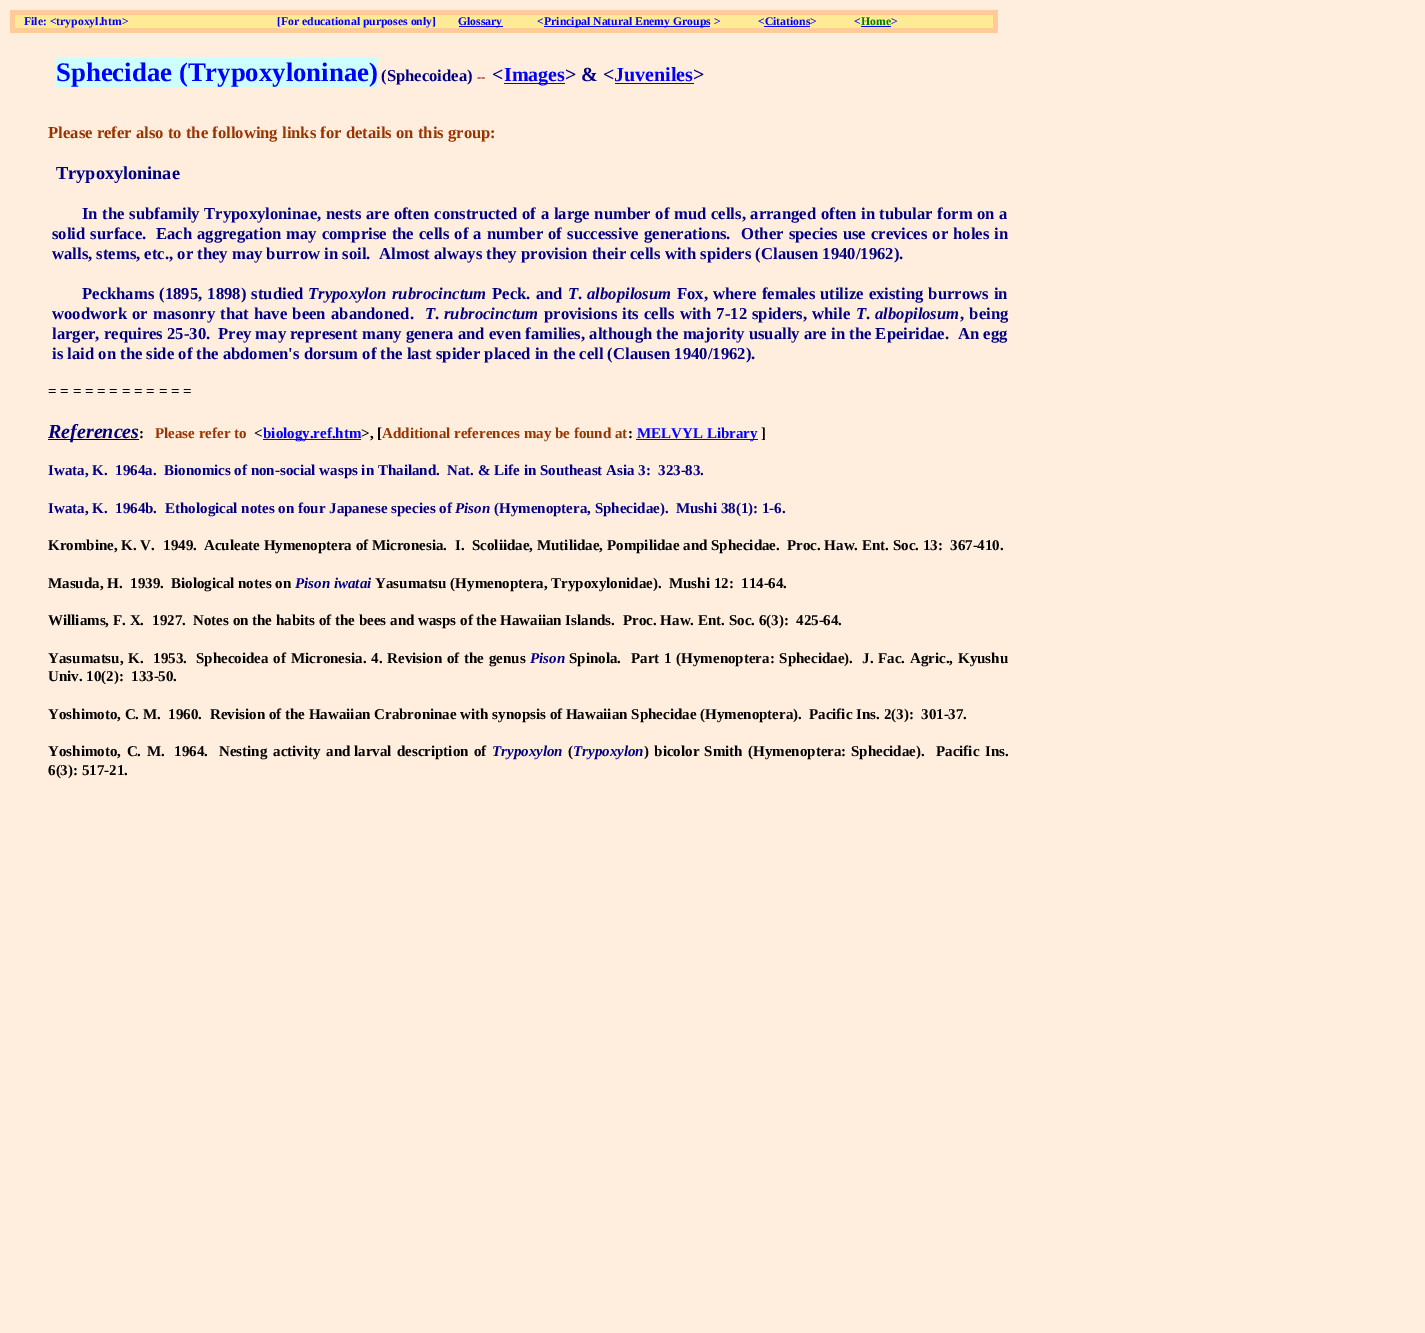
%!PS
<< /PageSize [1425 1333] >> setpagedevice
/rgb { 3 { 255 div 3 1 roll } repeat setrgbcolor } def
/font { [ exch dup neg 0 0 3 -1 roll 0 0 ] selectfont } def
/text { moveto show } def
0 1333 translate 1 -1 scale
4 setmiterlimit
255 238 221 rgb
0 0 1425 1333 rectfill
255 204 153 rgb
10 10 988 23 rectfill
255 235 149 rgb
15 15 978 13 rectfill
0 0 255 rgb
459 26 44 1 rectfill
544 26 166 1 rectfill
764 26 46 1 rectfill
861 26 30 1 rectfill
204 255 255 rgb
56 58 322 30 rectfill
0 0 255 rgb
504 83 61 1 rectfill
615 83 79 1 rectfill
0 0 0 rgb
48 439 91 1 rectfill
0 0 255 rgb
263 439 98 1 rectfill
636 439 122 1 rectfill
/LiberationSerif-Bold 11.7 font
(File: <trypoxyl.htm>) 24 25 text
([For educational purposes only]) 277 25 text
(Glossary) 458 25 text
(<) 537 25 text
(Principal Natural Enemy Groups >) 544 25 text
(<Citations>) 758 25 text
(<) 854 25 text
0 128 0 rgb
(Home) 861 25 text
0 0 255 rgb
(>) 891 25 text
/LiberationSerif-Bold 26.75 font
(Sphecidae \(Trypoxyloninae\)) 56 81 text
/LiberationSerif-Bold 16.65 font
0 0 128 rgb
(\(Sphecoidea\)) 381 81 text
/LiberationSerif-Bold 13 font
128 0 0 rgb
(--) 477 81 text
/LiberationSerif-Bold 20 font
0 0 128 rgb
(<) 492 81 text
0 0 255 rgb
(Images) 504 81 text
0 0 128 rgb
(> & <) 565 81 text
0 0 255 rgb
(Juveniles) 614 81 text
0 0 128 rgb
(>) 693 81 text
/LiberationSerif-Bold 16.65 font
153 51 0 rgb
(Please refer also to the following links for details on this group:) 48 138 text
/LiberationSerif-Bold 18.25 font
0 0 128 rgb
(Trypoxyloninae) 56 179 text
/LiberationSerif-Bold 16.65 font
82 219 moveto 0.5 0 32 (In the subfamily Trypoxyloninae,) widthshow
326 219 moveto 0.5 0 32 (nests are often constructed of a large number of mud cells, arranged often in) widthshow
879 219 moveto 0.5 0 32 (tubular form on a) widthshow
52 239 moveto 1 0 32 (solid surface.) widthshow
(Each) 156 239 text
197 239 moveto 0.9 0 32 (aggregation may comprise the cells of a number of successive) widthshow
(generations.) 644 239 text
741 239 moveto 0.9 0 32 (Other species use) widthshow
871 239 moveto 0.9 0 32 (crevices or holes in) widthshow
(walls, stems, etc., or they may burrow in soil.) 52 259 text
(Almost always they provision their cells with spiders \(Clausen 1940/1962\).) 379 259 text
82 299 moveto 1 0 32 (Peckhams \(1895, 1898\) studied) widthshow
/LiberationSerif-BoldItalic 16.65 font
(Trypoxylon) 308 299 text
(rubrocinctum) 392 299 text
/LiberationSerif-Bold 16.65 font
492 299 moveto 1 0 32 (Peck. and) widthshow
/LiberationSerif-BoldItalic 16.65 font
(T) 568 299 text
/LiberationSerif-Bold 16.65 font
(.) 578 299 text
/LiberationSerif-BoldItalic 16.65 font
(albopilosum) 587 299 text
/LiberationSerif-Bold 16.65 font
677 299 moveto 1 0 32 (Fox, where females) widthshow
820 299 moveto 1 0 32 (utilize existing burrows in) widthshow
52 319 moveto 1 0 32 (woodwork or masonry that have been) widthshow
(abandoned.) 331 319 text
/LiberationSerif-BoldItalic 16.65 font
(T) 425 319 text
/LiberationSerif-Bold 16.65 font
(.) 435 319 text
/LiberationSerif-BoldItalic 16.65 font
(rubrocinctum) 444 319 text
/LiberationSerif-Bold 16.65 font
544 319 moveto 1 0 32 (provisions its cells with 7-12 spiders, while) widthshow
/LiberationSerif-BoldItalic 16.65 font
(T) 856 319 text
/LiberationSerif-Bold 16.65 font
(.) 866 319 text
/LiberationSerif-BoldItalic 16.65 font
(albopilosum) 875 319 text
/LiberationSerif-Bold 16.65 font
960 319 moveto 1 0 32 (, being) widthshow
(larger, requires 25-30.) 52 339 text
(Prey may represent many genera and even families, although the majority usually are in the Epeiridae.) 218 339 text
(An egg) 958 339 text
(is laid on the side of the abdomen's dorsum of the last spider placed in the cell \(Clausen 1940/1962\).) 52 359 text
/LiberationSerif-Bold 15 font
0 0 0 rgb
(= = = = = = = = = = = =) 48 396 text
/LiberationSerif-BoldItalic 20 font
0 0 128 rgb
(References) 48 438 text
/LiberationSerif-Bold 15 font
0 0 0 rgb
(:) 139 438 text
153 51 0 rgb
(Please refer to) 155 438 text
0 0 0 rgb
(<) 254 438 text
0 0 255 rgb
(biology.ref.htm) 263 438 text
0 0 0 rgb
(>, [) 361 438 text
153 51 0 rgb
(Additional references may be found at) 382 438 text
0 0 0 rgb
(:) 628 438 text
0 0 255 rgb
(MELVYL Library) 637 438 text
0 0 0 rgb
(]) 761 438 text
0 0 128 rgb
(Iwata, K.) 48 475 text
(1964a.) 115 475 text
(Bionomics of non-social wasps in Thailand.) 164 475 text
(Nat. & Life in Southeast Asia 3:) 447 475 text
(323-83.) 658 475 text
(Iwata, K.) 48 513 text
(1964b.) 115 513 text
(Ethological notes on four Japanese species of) 165 513 text
/LiberationSerif-BoldItalic 15 font
(Pison) 455 513 text
/LiberationSerif-Bold 15 font
(\(Hymenoptera, Sphecidae\).) 494 513 text
(Mushi 38\(1\): 1-6.) 676 513 text
0 0 0 rgb
(Krombine, K. V.) 48 550 text
(1949.) 163 550 text
(Aculeate Hymenoptera of Micronesia.) 204 550 text
(I.) 455 550 text
(Scoliidae, Mutilidae, Pompilidae and Sphecidae.) 472 550 text
(Proc. Haw. Ent. Soc. 13:) 787 550 text
(367-410.) 950 550 text
(Masuda, H.) 48 588 text
(1939.) 130 588 text
(Biological notes on) 171 588 text
/LiberationSerif-BoldItalic 15 font
0 0 128 rgb
(Pison iwatai) 295 588 text
/LiberationSerif-Bold 15 font
0 0 0 rgb
(Yasumatsu \(Hymenoptera, Trypoxylonidae\).) 375 588 text
(Mushi 12:) 669 588 text
(114-64.) 741 588 text
(Williams, F. X.) 48 625 text
(1927.) 152 625 text
(Notes on the habits of the bees and wasps of the Hawaiian Islands.) 193 625 text
(Proc. Haw. Ent. Soc. 6\(3\):) 623 625 text
(425-64.) 796 625 text
48 663 moveto 1 0 32 (Yasumatsu, K.) widthshow
(1953.) 153 663 text
196 663 moveto 1 0 32 (Sphecoidea of) widthshow
291 663 moveto 1 0 32 (Micronesia. 4. Revision of the genus) widthshow
/LiberationSerif-BoldItalic 15 font
0 0 128 rgb
(Pison) 530 663 text
/LiberationSerif-Bold 15 font
0 0 0 rgb
(Spinola.) 569 663 text
631 663 moveto 1 0 32 (Part 1 \(Hymenoptera: Sphecidae\).) widthshow
862 663 moveto 1 0 32 (J. Fac. Agric., Kyushu) widthshow
(Univ. 10\(2\):) 48 681 text
(133-50.) 131 681 text
(Yoshimoto, C. M.) 48 719 text
(1960.) 168 719 text
(Revision of the Hawaiian Crabroninae with synopsis of Hawaiian Sphecidae \(Hymenoptera\).) 210 719 text
(Pacific Ins. 2\(3\):) 809 719 text
(301-37.) 921 719 text
48 756 moveto 2 0 32 (Yoshimoto, C. M.) widthshow
(1964.) 174 756 text
219 756 moveto 2 0 32 (Nesting activity and) widthshow
354 756 moveto 1.5 0 32 (larval description of) widthshow
/LiberationSerif-BoldItalic 15 font
0 0 128 rgb
(Trypoxylon) 492 756 text
/LiberationSerif-Bold 15 font
0 0 0 rgb
(\() 568 756 text
/LiberationSerif-BoldItalic 15 font
0 0 128 rgb
(Trypoxylon) 573 756 text
/LiberationSerif-Bold 15 font
0 0 0 rgb
644 756 moveto 1.5 0 32 (\) bicolor Smith \(Hymenoptera:) widthshow
(Sphecidae\).) 851 756 text
936 756 moveto 2 0 32 (Pacific Ins.) widthshow
(6\(3\): 517-21.) 48 775 text
showpage
